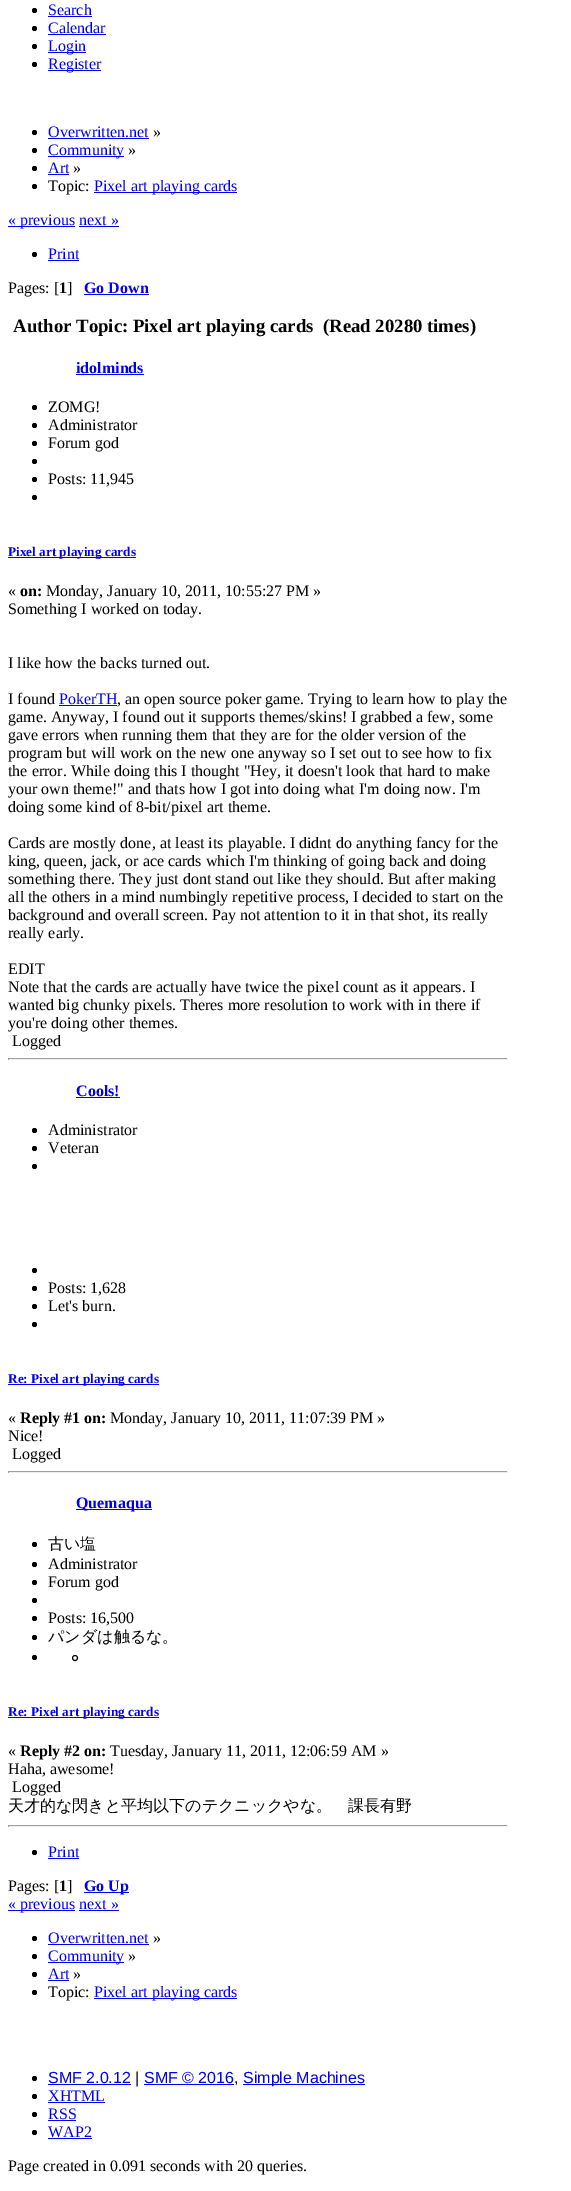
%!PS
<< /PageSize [571 2191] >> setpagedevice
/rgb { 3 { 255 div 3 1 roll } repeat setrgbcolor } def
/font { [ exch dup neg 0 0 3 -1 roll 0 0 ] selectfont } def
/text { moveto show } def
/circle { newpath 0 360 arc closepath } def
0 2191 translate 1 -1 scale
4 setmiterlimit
255 255 255 rgb
0 0 571 2191 rectfill
0 0 0 rgb
34.5 10.5 2.5 circle fill
0 0 238 rgb
48 16 44 1 rectfill
0 0 0 rgb
34.5 28.5 2.5 circle fill
0 0 238 rgb
48 34 58 1 rectfill
0 0 0 rgb
34.5 46.5 2.5 circle fill
0 0 238 rgb
48 52 38 1 rectfill
0 0 0 rgb
34.5 64.5 2.5 circle fill
0 0 238 rgb
48 70 53 1 rectfill
0 0 0 rgb
34.5 132.5 2.5 circle fill
0 0 238 rgb
48 138 101 1 rectfill
0 0 0 rgb
34.5 150.5 2.5 circle fill
0 0 238 rgb
48 156 76 1 rectfill
0 0 0 rgb
34.5 168.5 2.5 circle fill
0 0 238 rgb
48 174 21 1 rectfill
0 0 0 rgb
34.5 186.5 2.5 circle fill
0 0 238 rgb
94 192 143 1 rectfill
8 226 67 1 rectfill
79 226 40 1 rectfill
0 0 0 rgb
34.5 254.5 2.5 circle fill
0 0 238 rgb
48 260 31 1 rectfill
84 294 65 1 rectfill
76 374 68 1 rectfill
0 0 0 rgb
34.5 407.5 2.5 circle fill
34.5 425.5 2.5 circle fill
34.5 443.5 2.5 circle fill
34.5 461.5 2.5 circle fill
34.5 479.5 2.5 circle fill
34.5 497.5 2.5 circle fill
0 0 238 rgb
8 557 128 1 rectfill
59 705 58 1 rectfill
159 159 159 rgb
8 1058 500 1 rectfill
238 238 238 rgb
507 1058 1 2 rectfill
8 1059 500 1 rectfill
159 159 159 rgb
8 1058 1 2 rectfill
0 0 238 rgb
76 1097 44 1 rectfill
0 0 0 rgb
34.5 1130.5 2.5 circle fill
34.5 1148.5 2.5 circle fill
34.5 1166.5 2.5 circle fill
34.5 1270.5 2.5 circle fill
34.5 1288.5 2.5 circle fill
34.5 1306.5 2.5 circle fill
34.5 1324.5 2.5 circle fill
0 0 238 rgb
8 1384 151 1 rectfill
159 159 159 rgb
8 1471 500 1 rectfill
238 238 238 rgb
507 1471 1 2 rectfill
8 1472 500 1 rectfill
159 159 159 rgb
8 1471 1 2 rectfill
0 0 238 rgb
76 1509 76 1 rectfill
0 0 0 rgb
34.5 1544.5 2.5 circle fill
34.5 1564.5 2.5 circle fill
34.5 1582.5 2.5 circle fill
34.5 1600.5 2.5 circle fill
34.5 1618.5 2.5 circle fill
34.5 1637.5 2.5 circle fill
34.5 1657.5 2.5 circle fill
75 1658 2.5 circle stroke
0 0 238 rgb
8 1717 151 1 rectfill
159 159 159 rgb
8 1825 500 1 rectfill
238 238 238 rgb
507 1825 1 2 rectfill
8 1826 500 1 rectfill
159 159 159 rgb
8 1825 1 2 rectfill
0 0 0 rgb
34.5 1852.5 2.5 circle fill
0 0 238 rgb
48 1858 31 1 rectfill
84 1892 45 1 rectfill
8 1910 67 1 rectfill
79 1910 40 1 rectfill
0 0 0 rgb
34.5 1938.5 2.5 circle fill
0 0 238 rgb
48 1944 101 1 rectfill
0 0 0 rgb
34.5 1956.5 2.5 circle fill
0 0 238 rgb
48 1962 76 1 rectfill
0 0 0 rgb
34.5 1974.5 2.5 circle fill
0 0 238 rgb
48 1980 21 1 rectfill
0 0 0 rgb
34.5 1992.5 2.5 circle fill
0 0 238 rgb
94 1998 143 1 rectfill
0 0 0 rgb
34.5 2078.5 2.5 circle fill
0 0 238 rgb
48 2084 83 1 rectfill
144 2084 90 1 rectfill
243 2084 122 1 rectfill
0 0 0 rgb
34.5 2096.5 2.5 circle fill
0 0 238 rgb
48 2102 57 1 rectfill
0 0 0 rgb
34.5 2114.5 2.5 circle fill
0 0 238 rgb
48 2120 28 1 rectfill
0 0 0 rgb
34.5 2132.5 2.5 circle fill
0 0 238 rgb
48 2138 44 1 rectfill
/LiberationSerif-Regular 16 font
(Search) 48 15 text
(Calendar) 48 33 text
(Login) 48 51 text
(Register) 48 69 text
(Overwritten.net) 48 137 text
0 0 0 rgb
(») 153 137 text
0 0 238 rgb
(Community) 48 155 text
0 0 0 rgb
(») 128 155 text
0 0 238 rgb
(Art) 48 173 text
0 0 0 rgb
(») 73 173 text
(Topic:) 48 191 text
0 0 238 rgb
(Pixel art playing cards) 94 191 text
(« previous next ») 8 225 text
(Print) 48 259 text
0 0 0 rgb
(Pages: [) 8 293 text
/LiberationSerif-Bold 16 font
(1) 59 293 text
/LiberationSerif-Regular 16 font
(]) 67 293 text
/LiberationSerif-Bold 16 font
0 0 238 rgb
(Go Down) 84 293 text
/LiberationSerif-Bold 18.75 font
0 0 0 rgb
(Author Topic: Pixel art playing cards  \(Read 20280 times\)) 13 332 text
/LiberationSerif-Bold 16 font
0 0 238 rgb
(idolminds) 76 373 text
/LiberationSerif-Regular 16 font
0 0 0 rgb
(ZOMG!) 48 412 text
(Administrator) 48 430 text
(Forum god) 48 448 text
(Posts: 11,945) 48 484 text
/LiberationSerif-Bold 13.25 font
0 0 238 rgb
(Pixel art playing cards) 8 556 text
/LiberationSerif-Regular 16 font
0 0 0 rgb
(«) 8 596 text
/LiberationSerif-Bold 16 font
(on:) 20 596 text
/LiberationSerif-Regular 16 font
(Monday, January 10, 2011, 10:55:27 PM ») 46 596 text
(Something I worked on today.) 8 614 text
(I like how the backs turned out.) 8 668 text
(I found) 8 704 text
0 0 238 rgb
(PokerTH) 59 704 text
0 0 0 rgb
(, an open source poker game. Trying to learn how to play the) 117 704 text
(game. Anyway, I found out it supports themes/skins! I grabbed a few, some) 8 722 text
(gave errors when running them that they are for the older version of the) 8 740 text
(program but will work on the new one anyway so I set out to see how to fix) 8 758 text
(the error. While doing this I thought "Hey, it doesn't look that hard to make) 8 776 text
(your own theme!" and thats how I got into doing what I'm doing now. I'm) 8 794 text
(doing some kind of 8-bit/pixel art theme.) 8 812 text
(Cards are mostly done, at least its playable. I didnt do anything fancy for the) 8 848 text
(king, queen, jack, or ace cards which I'm thinking of going back and doing) 8 866 text
(something there. They just dont stand out like they should. But after making) 8 884 text
(all the others in a mind numbingly repetitive process, I decided to start on the) 8 902 text
(background and overall screen. Pay not attention to it in that shot, its really) 8 920 text
(really early.) 8 938 text
(EDIT) 8 974 text
(Note that the cards are actually have twice the pixel count as it appears. I) 8 992 text
(wanted big chunky pixels. Theres more resolution to work with in there if) 8 1010 text
(you're doing other themes.) 8 1028 text
(Logged) 12 1046 text
/LiberationSerif-Bold 16 font
0 0 238 rgb
(Cools!) 76 1096 text
/LiberationSerif-Regular 16 font
0 0 0 rgb
(Administrator) 48 1135 text
(Veteran) 48 1153 text
(Posts: 1,628) 48 1293 text
(Let's burn.) 48 1311 text
/LiberationSerif-Bold 13.25 font
0 0 238 rgb
(Re: Pixel art playing cards) 8 1383 text
/LiberationSerif-Regular 16 font
0 0 0 rgb
(«) 8 1423 text
/LiberationSerif-Bold 16 font
(Reply #1 on:) 20 1423 text
/LiberationSerif-Regular 16 font
(Monday, January 10, 2011, 11:07:39 PM ») 110 1423 text
(Nice!) 8 1441 text
(Logged) 12 1459 text
/LiberationSerif-Bold 16 font
0 0 238 rgb
(Quemaqua) 76 1508 text
/WenQuanYiZenHei-Medium 16 font
0 0 0 rgb
(古い塩) 48 1549 text
/LiberationSerif-Regular 16 font
(Administrator) 48 1569 text
(Forum god) 48 1587 text
(Posts: 16,500) 48 1623 text
/WenQuanYiZenHei-Medium 16 font
(パンダは触るな。) 48 1642 text
/LiberationSerif-Bold 13.25 font
0 0 238 rgb
(Re: Pixel art playing cards) 8 1716 text
/LiberationSerif-Regular 16 font
0 0 0 rgb
(«) 8 1756 text
/LiberationSerif-Bold 16 font
(Reply #2 on:) 20 1756 text
/LiberationSerif-Regular 16 font
(Tuesday, January 11, 2011, 12:06:59 AM ») 110 1756 text
(Haha, awesome!) 8 1774 text
(Logged) 12 1792 text
/WenQuanYiZenHei-Medium 16 font
(天才的な閃きと平均以下のテクニックやな。　課長有野) 8 1811 text
/LiberationSerif-Regular 16 font
0 0 238 rgb
(Print) 48 1857 text
0 0 0 rgb
(Pages: [) 8 1891 text
/LiberationSerif-Bold 16 font
(1) 59 1891 text
/LiberationSerif-Regular 16 font
(]) 67 1891 text
/LiberationSerif-Bold 16 font
0 0 238 rgb
(Go Up) 84 1891 text
/LiberationSerif-Regular 16 font
(« previous next ») 8 1909 text
(Overwritten.net) 48 1943 text
0 0 0 rgb
(») 153 1943 text
0 0 238 rgb
(Community) 48 1961 text
0 0 0 rgb
(») 128 1961 text
0 0 238 rgb
(Art) 48 1979 text
0 0 0 rgb
(») 73 1979 text
(Topic:) 48 1997 text
0 0 238 rgb
(Pixel art playing cards) 94 1997 text
/LiberationSans-Regular 16 font
(SMF 2.0.12) 48 2083 text
0 0 0 rgb
(|) 135 2083 text
0 0 238 rgb
(SMF © 2016) 144 2083 text
(Simple Machines) 243 2083 text
0 0 0 rgb
(,) 234 2083 text
/LiberationSerif-Regular 16 font
0 0 238 rgb
(XHTML) 48 2101 text
(RSS) 48 2119 text
(WAP2) 48 2137 text
0 0 0 rgb
(Page created in 0.091 seconds with 20 queries.) 8 2171 text
showpage
